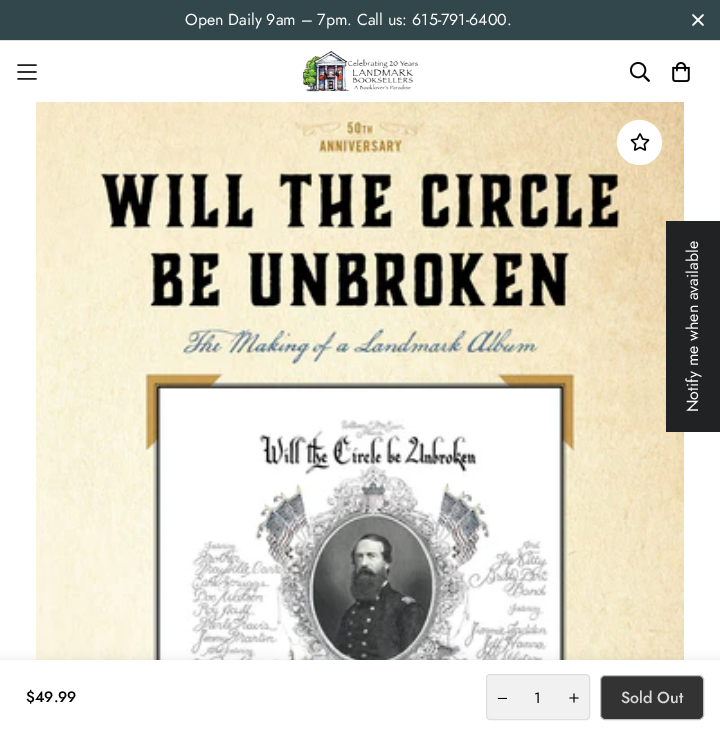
%!PS
<< /PageSize [720 734] /PageUsesTransparency true >> setpagedevice
/rgb { 3 { 255 div 3 1 roll } repeat setrgbcolor } def
/font { [ exch dup neg 0 0 3 -1 roll 0 0 ] selectfont } def
/text { moveto show } def
/alpha { dup .setfillconstantalpha .setstrokeconstantalpha } def
/circle { newpath 0 360 arc closepath } def
/roundrect { 5 dict begin { /r /h /w /y /x } { exch def } forall
  x r add y moveto x w add y 2 copy h add r arct x w add y h add x 1 index r arct
  x y h add x y r arct x y 2 copy exch w add exch r arct closepath end } def
/shadow { 12 dict begin { /a /b /q /h /w /y /x } { exch def } forall gsave /was 0 def
  9 -2 -9 { dup b mul 4 div /e exch def 1 sub .425 mul 2.718 exch exp 1 add a .99 .min exch div /now exch def
    1 1 now sub 1 was sub div sub alpha /was now def
    w h .min e 2 mul add 0 gt { x e sub y e sub w e 2 mul add h e 2 mul add
      q e add b .6 mul add w h .min 2 div e add .min 0 .max roundrect fill } if } for grestore end } def
/picture { 5 dict begin { /h /w /y /x /name } { exch def } forall
  gsave x y translate w h scale
  w h 8 [w 0 0 h 0 0] name (r) file false 3 colorimage grestore end } def
0 .pushpdf14devicefilter
0 734 translate 1 -1 scale
4 setmiterlimit
255 255 255 rgb
0 0 720 734 rectfill
50 71 76 rgb
0 0 720 40 rectfill
222 222 222 rgb
0 40 720 1 rectfill
255 255 255 rgb
1.7 setlinewidth
1 setlinecap
1 setlinejoin
693 25 moveto 10 -10 rlineto 693 15 moveto 10 10 rlineto stroke
(img_01.rgb) 17 64 20 16 picture
(img_02.rgb) 303 51 115 41 picture
(img_03.rgb) 630 62 20 20 picture
(img_04.rgb) 672 62 18 20 picture
(img_05.rgb) 36 102 648 558 picture
32 34 35 rgb
666 221 54 211 rectfill
255 255 255 rgb
639.5 142.5 22.5 circle fill
(img_06.rgb) 630 133 20 18 picture
0 0 0 rgb
0 660 720 74 0 5 0.09 shadow
255 255 255 rgb
0 660 720 74 rectfill
241 241 241 rgb
486.5 674.5 103 45 3.5 roundrect gsave fill grestore
222 222 222 rgb
1 setlinewidth
0 setlinecap
0 setlinejoin
stroke
(img_07.rgb) 497 697 10 2 picture
(img_08.rgb) 569 693 10 10 picture
51 51 51 rgb
600.5 675.5 103 44 4.5 roundrect gsave fill grestore
193 193 193 rgb
stroke
/Jost-Regular 16 font
255 255 255 rgb
(Open Daily 9am – 7pm. Call us: 615-791-6400.) 185 25 text
gsave 698 412 translate -90 rotate 0 0 moveto (Notify me when available) show grestore
/Jost-Medium 15 font
0 0 0 rgb
($49.99) 26 702 text
/Jost-Regular 15 font
(1) 534 703 text
/Jost-Medium 16 font
216 216 216 rgb
(Sold Out) 621 703 text
.poppdf14devicefilter showpage
